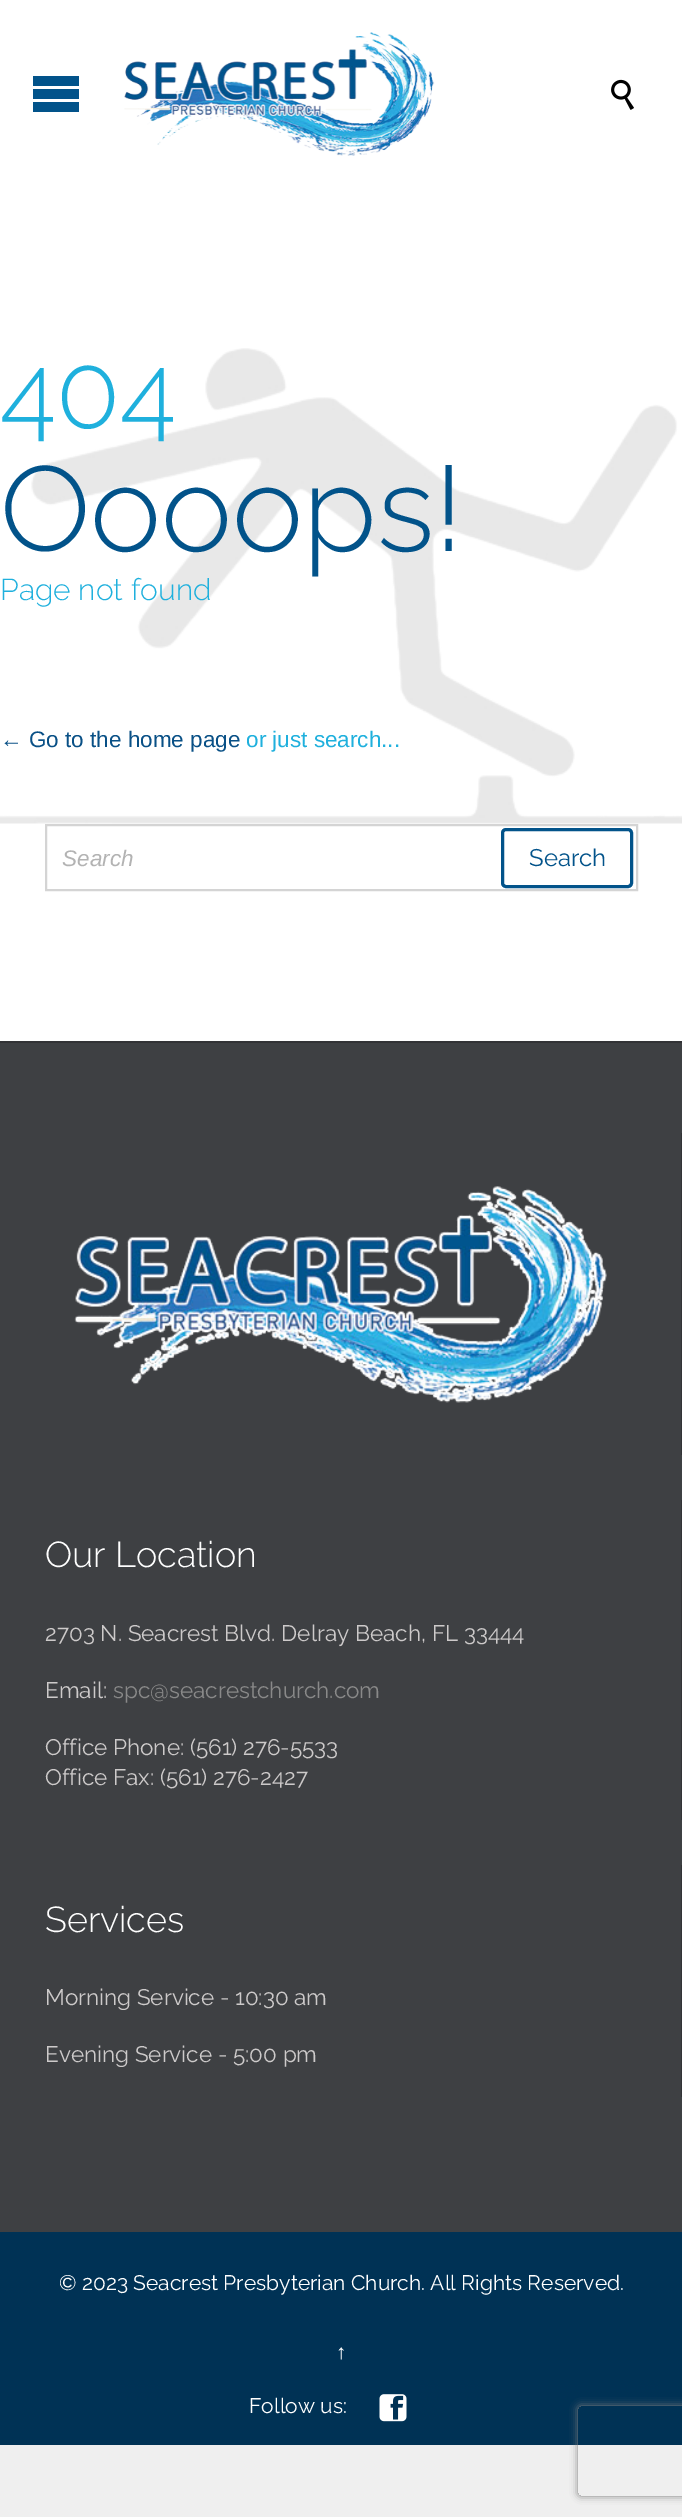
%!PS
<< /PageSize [682 2517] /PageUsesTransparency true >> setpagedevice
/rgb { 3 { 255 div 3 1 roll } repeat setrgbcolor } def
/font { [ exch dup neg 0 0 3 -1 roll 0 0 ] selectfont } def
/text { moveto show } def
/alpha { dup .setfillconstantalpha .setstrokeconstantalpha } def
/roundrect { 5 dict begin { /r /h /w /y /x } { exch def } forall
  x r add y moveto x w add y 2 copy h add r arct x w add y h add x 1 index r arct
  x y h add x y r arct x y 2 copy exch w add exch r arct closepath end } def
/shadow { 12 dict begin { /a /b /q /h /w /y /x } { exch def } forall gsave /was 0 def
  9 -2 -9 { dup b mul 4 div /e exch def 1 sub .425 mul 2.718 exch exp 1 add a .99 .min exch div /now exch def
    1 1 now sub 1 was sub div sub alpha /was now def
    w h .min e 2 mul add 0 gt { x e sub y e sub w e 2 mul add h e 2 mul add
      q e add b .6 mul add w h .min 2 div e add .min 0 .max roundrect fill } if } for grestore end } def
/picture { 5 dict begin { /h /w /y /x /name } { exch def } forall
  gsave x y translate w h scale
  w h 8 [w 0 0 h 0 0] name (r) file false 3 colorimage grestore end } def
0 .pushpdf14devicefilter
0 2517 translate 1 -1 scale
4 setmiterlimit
239 239 239 rgb
0 0 682 2517 rectfill
255 255 255 rgb
0 0 682 1041 rectfill
2 83 138 rgb
33 76 moveto 46 0 rlineto 0 10 rlineto -46 0 rlineto closepath 33 89 moveto 46 0 rlineto 0 10 rlineto -46 0 rlineto closepath 33 102 moveto 46 0 rlineto 0 10 rlineto -46 0 rlineto closepath fill
(img_01.rgb) 124 32 311 124 picture
(img_02.rgb) 611 79 23 31 picture
(img_03.rgb) 0 348 682 476 picture
212 212 212 rgb
2 setlinewidth
46 825 591 65 rectstroke
2 83 138 rgb
3 setlinewidth
502.5 829.5 129 57 3.5 roundrect stroke
62 64 67 rgb
0 1043 682 1189 rectfill
50 51 54 rgb
0 1041 682 2 rectfill
681 1133 1 322 rectfill
(img_04.rgb) 74 1186 533 217 picture
681 1500 1 320 rectfill
681 1865 1 232 rectfill
0 50 85 rgb
0 2232 682 213 rectfill
(img_05.rgb) 379 2394 28 28 picture
gsave
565 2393 moveto 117 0 rlineto 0 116 rlineto -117 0 rlineto closepath 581 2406 moveto 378 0 rlineto 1.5 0 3 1.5 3 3 rcurveto 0 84 rlineto 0 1.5 -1.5 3 -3 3 rcurveto -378 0 rlineto -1.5 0 -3 -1.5 -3 -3 rcurveto 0 -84 rlineto 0 -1.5 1.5 -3 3 -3 rcurveto closepath eoclip newpath
128 128 128 rgb
578 2406 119 90 3 4 1 shadow
grestore
/Raleway-Light 105 font
31 176 221 rgb
(404) 0 428 text
/Raleway-Light 120 font
2 83 138 rgb
(Oooops!) 0 551 text
/Raleway-Light 30 font
31 176 221 rgb
(Page not found) 0 600 text
/LiberationSans-Regular 22.5 font
9 80 134 rgb
(← Go to the home page) 0 747 text
31 176 221 rgb
(or just search...) 246 747 text
/LiberationSans-Italic 22.5 font
179 179 179 rgb
(Search) 62 866 text
/Raleway-Regular 24 font
2 83 138 rgb
(Search) 529 866 text
/Raleway-Light 36 font
255 255 255 rgb
(Our Location) 45 1567 text
/Raleway-Regular 22.5 font
205 202 202 rgb
(2703 N. Seacrest Blvd. Delray Beach, FL 33444) 45 1641 text
(Email:) 45 1698 text
137 137 137 rgb
(spc@seacrestchurch.com) 113 1698 text
205 202 202 rgb
(Office Phone: \(561\) 276-5533) 45 1755 text
(Office Fax: \(561\) 276-2427) 45 1785 text
/Raleway-Light 36 font
255 255 255 rgb
(Services) 45 1932 text
/Raleway-Regular 22.5 font
205 202 202 rgb
(Morning Service - 10:30 am) 45 2005 text
(Evening Service - 5:00 pm) 45 2062 text
/Raleway-Regular 21 font
255 255 255 rgb
(© 2023 Seacrest Presbyterian Church. All Rights Reserved.) 59 2290 text
/LiberationSerif-Regular 21 font
(↑) 336 2359 text
/Raleway-Regular 21 font
(Follow us:) 249 2413 text
.poppdf14devicefilter showpage
